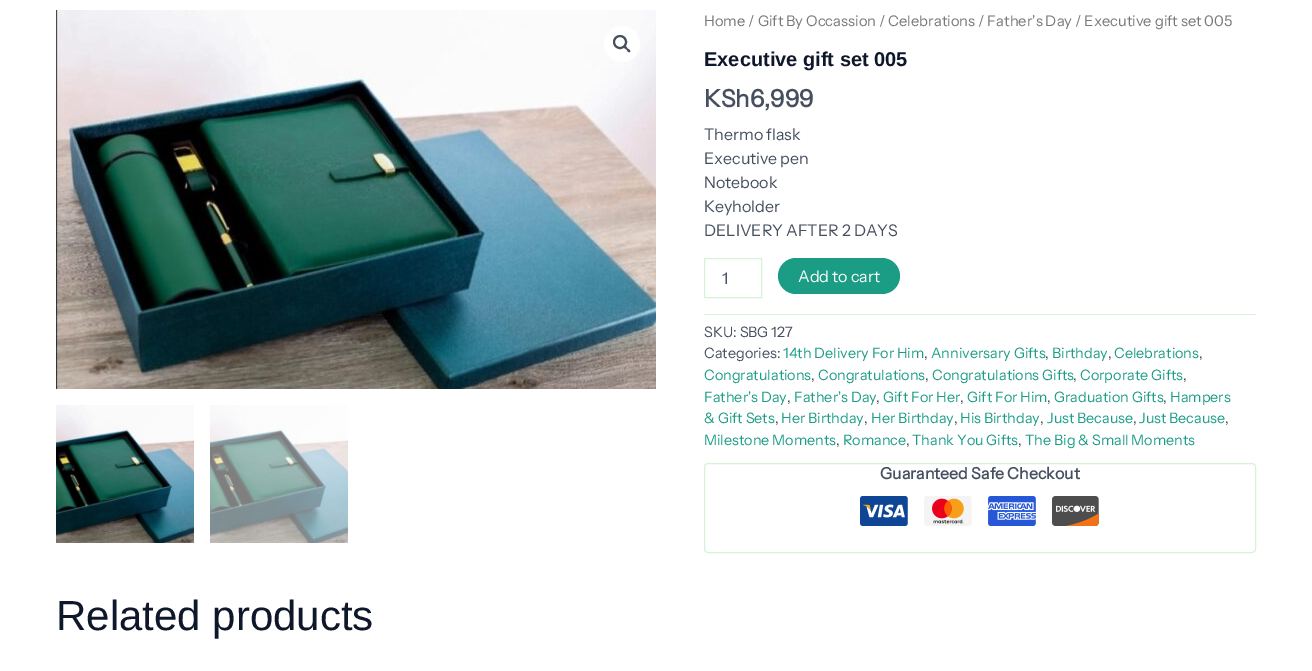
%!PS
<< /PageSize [1312 671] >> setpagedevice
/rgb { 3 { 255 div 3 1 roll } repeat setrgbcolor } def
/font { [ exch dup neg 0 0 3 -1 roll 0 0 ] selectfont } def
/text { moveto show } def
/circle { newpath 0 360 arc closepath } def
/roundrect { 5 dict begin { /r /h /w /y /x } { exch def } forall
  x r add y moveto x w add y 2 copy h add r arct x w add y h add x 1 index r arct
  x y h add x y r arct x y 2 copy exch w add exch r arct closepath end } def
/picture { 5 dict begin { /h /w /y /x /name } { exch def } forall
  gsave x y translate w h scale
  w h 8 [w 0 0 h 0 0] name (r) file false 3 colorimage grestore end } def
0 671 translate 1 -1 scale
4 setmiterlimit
255 255 255 rgb
0 0 1312 671 rectfill
(img_01.rgb) 56 10 600 379 picture
622 44 18 circle fill
69 79 94 rgb
2 setlinewidth
620 42 6 circle stroke
624 46 moveto 1.5 -1 3 1.5 3.5 2.5 rcurveto 1 0.5 3.5 2 2.5 3.5 rcurveto -1.5 1 -3 -1.5 -3.5 -2.5 rcurveto -1 -0.5 -3.5 -2 -2.5 -3.5 rcurveto closepath fill
(img_02.rgb) 56 405 138 138 picture
(img_03.rgb) 210 405 138 138 picture
212 243 215 rgb
1 setlinewidth
704.5 258.5 57 39 rectstroke
27 156 133 rgb
778 258 122 36 18 roundrect fill
212 243 215 rgb
704 314 552 1 rectfill
704.5 463.5 551 89 3.5 roundrect stroke
(img_04.rgb) 860 496 48 30 picture
(img_05.rgb) 924 496 48 30 picture
(img_06.rgb) 988 496 48 30 picture
(img_07.rgb) 1052 496 47 30 picture
/InstrumentSans-Regular 14.7 font
119 119 119 rgb
(Home / Gift By Occassion / Celebrations / Father's Day / Executive gift set 005) 704 26 text
/LiberationSans-Bold 20 font
15 23 42 rgb
(Executive gift set 005) 704 66 text
/InstrumentSans-Bold 24 font
69 79 94 rgb
(KSh6,999) 704 107 text
/InstrumentSans-Regular 16 font
(Thermo flask) 704 140 text
(Executive pen) 704 164 text
(Notebook) 704 188 text
(Keyholder) 704 212 text
(DELIVERY AFTER 2 DAYS) 704 236 text
71 85 105 rgb
(1) 722 284 text
255 255 255 rgb
(Add to cart) 798 282 text
/InstrumentSans-Regular 14.4 font
69 79 94 rgb
(SKU: SBG 127) 704 337 text
(Categories:) 704 358 text
27 156 133 rgb
(14th Delivery For Him) 783 358 text
69 79 94 rgb
(,) 924 358 text
27 156 133 rgb
(Anniversary Gifts) 931 358 text
69 79 94 rgb
(,) 1045 358 text
27 156 133 rgb
(Birthday) 1052 358 text
69 79 94 rgb
(,) 1108 358 text
27 156 133 rgb
(Celebrations) 1114 358 text
69 79 94 rgb
(,) 1199 358 text
27 156 133 rgb
(Congratulations) 704 380 text
69 79 94 rgb
(,) 811 380 text
27 156 133 rgb
(Congratulations) 818 380 text
69 79 94 rgb
(,) 925 380 text
27 156 133 rgb
(Congratulations Gifts) 932 380 text
69 79 94 rgb
(,) 1073 380 text
27 156 133 rgb
(Corporate Gifts) 1080 380 text
69 79 94 rgb
(,) 1183 380 text
27 156 133 rgb
(Father's Day) 704 402 text
69 79 94 rgb
(,) 787 402 text
27 156 133 rgb
(Father's Day) 794 402 text
69 79 94 rgb
(,) 876 402 text
27 156 133 rgb
(Gift For Her) 883 402 text
69 79 94 rgb
(,) 960 402 text
27 156 133 rgb
(Gift For Him) 967 402 text
69 79 94 rgb
(,) 1047 402 text
27 156 133 rgb
(Graduation Gifts) 1054 402 text
69 79 94 rgb
(,) 1163 402 text
27 156 133 rgb
(Hampers) 1170 402 text
(& Gift Sets) 704 423 text
69 79 94 rgb
(,) 775 423 text
27 156 133 rgb
(Her Birthday) 781 423 text
69 79 94 rgb
(,) 864 423 text
27 156 133 rgb
(Her Birthday) 871 423 text
69 79 94 rgb
(,) 954 423 text
27 156 133 rgb
(His Birthday) 960 423 text
69 79 94 rgb
(,) 1040 423 text
27 156 133 rgb
(Just Because) 1047 423 text
69 79 94 rgb
(,) 1133 423 text
27 156 133 rgb
(Just Because) 1139 423 text
69 79 94 rgb
(,) 1225 423 text
27 156 133 rgb
(Milestone Moments) 704 445 text
69 79 94 rgb
(,) 836 445 text
27 156 133 rgb
(Romance) 843 445 text
69 79 94 rgb
(,) 906 445 text
27 156 133 rgb
(Thank You Gifts) 912 445 text
69 79 94 rgb
(,) 1018 445 text
27 156 133 rgb
(The Big & Small Moments) 1025 445 text
/InstrumentSans-Bold 16 font
69 79 94 rgb
(Guaranteed Safe Checkout) 880 479 text
/LiberationSans-Regular 42 font
15 23 42 rgb
(Related products) 56 630 text
showpage
